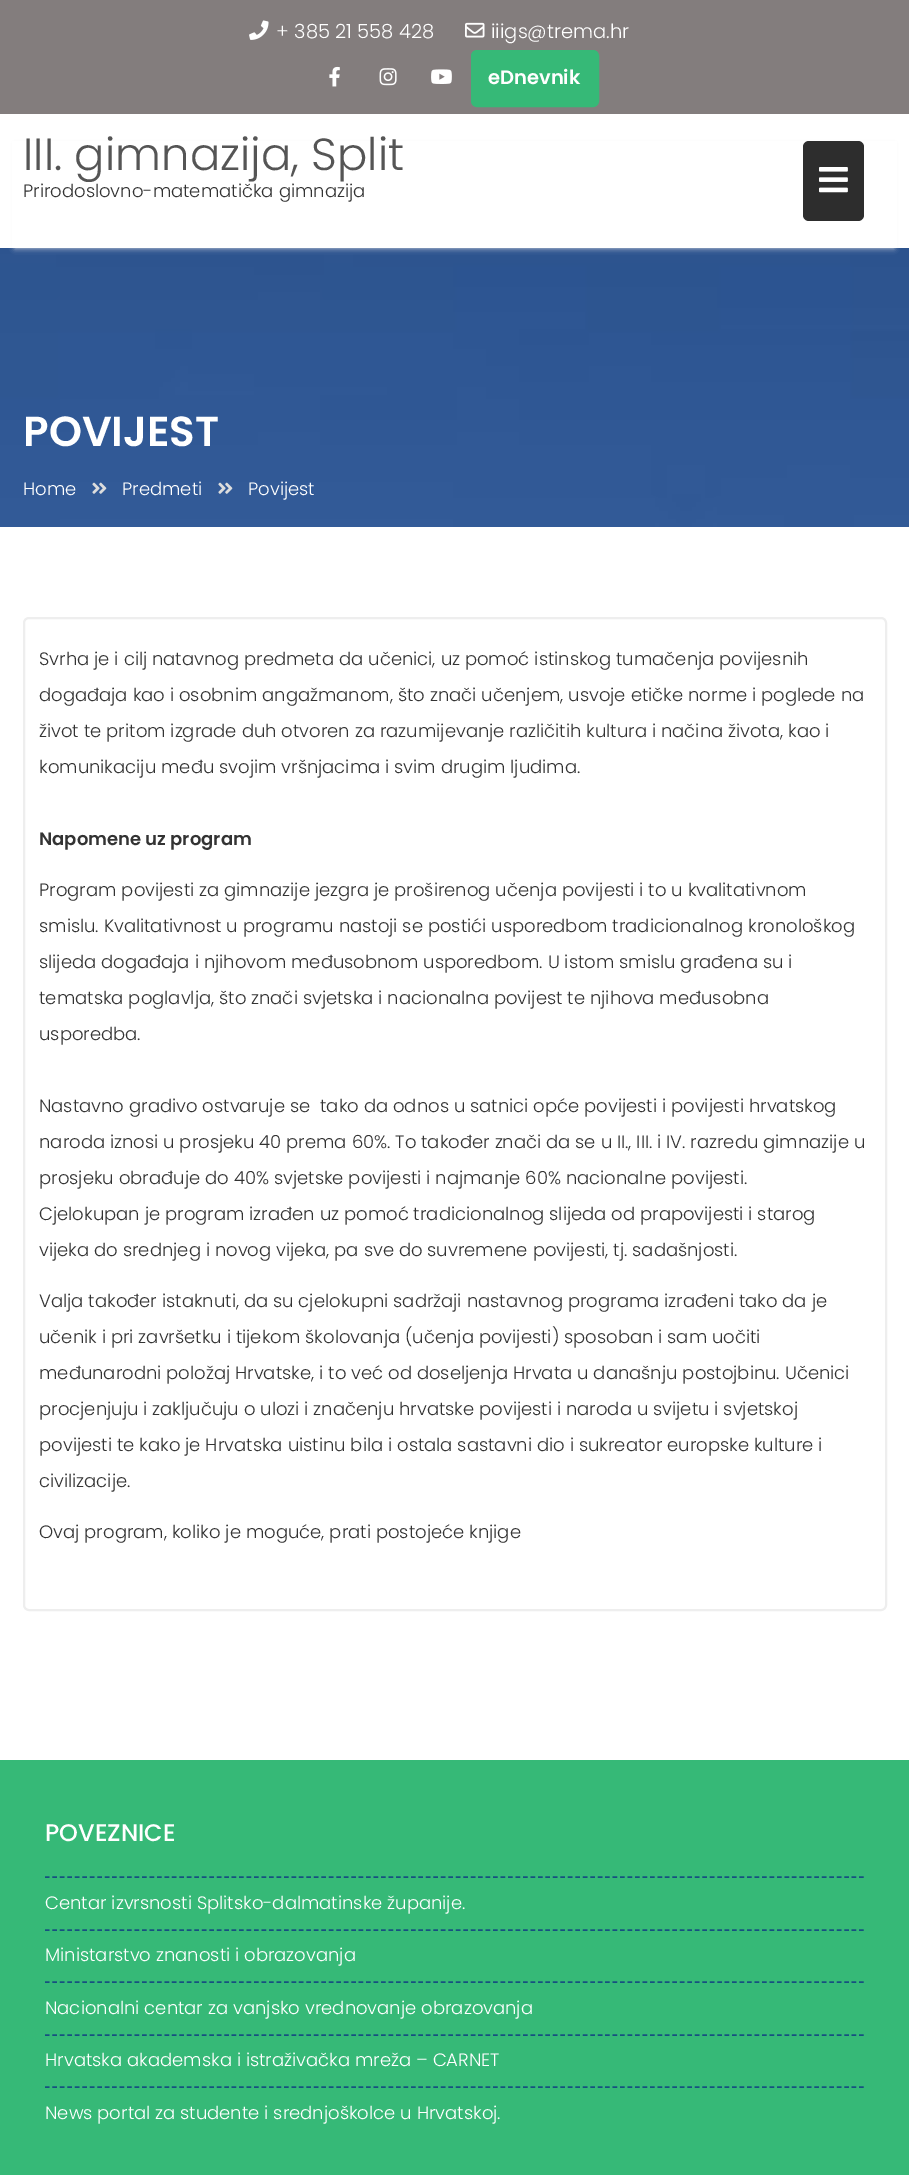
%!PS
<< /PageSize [909 2175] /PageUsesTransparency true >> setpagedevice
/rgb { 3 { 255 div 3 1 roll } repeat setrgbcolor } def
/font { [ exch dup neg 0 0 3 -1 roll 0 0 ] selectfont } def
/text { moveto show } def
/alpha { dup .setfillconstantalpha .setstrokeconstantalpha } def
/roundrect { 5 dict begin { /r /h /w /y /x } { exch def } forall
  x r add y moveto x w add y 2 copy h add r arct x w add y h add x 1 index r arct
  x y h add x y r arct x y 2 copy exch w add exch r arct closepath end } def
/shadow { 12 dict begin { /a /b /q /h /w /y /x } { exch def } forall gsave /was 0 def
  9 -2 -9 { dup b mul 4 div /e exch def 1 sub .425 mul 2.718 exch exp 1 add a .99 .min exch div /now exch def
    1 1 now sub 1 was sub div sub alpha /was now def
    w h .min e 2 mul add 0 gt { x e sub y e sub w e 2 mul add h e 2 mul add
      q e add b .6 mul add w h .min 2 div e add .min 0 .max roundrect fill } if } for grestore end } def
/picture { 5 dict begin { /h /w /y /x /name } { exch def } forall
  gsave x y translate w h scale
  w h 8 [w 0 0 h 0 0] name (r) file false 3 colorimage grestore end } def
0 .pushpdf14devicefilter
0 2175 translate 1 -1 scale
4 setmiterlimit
255 255 255 rgb
0 0 909 2175 rectfill
131 125 125 rgb
0 0 909 114 rectfill
(img_01.rgb) 249 20 20 20 picture
(img_02.rgb) 465 22 20 16 picture
(img_03.rgb) 329 66 11 21 picture
(img_04.rgb) 379 68 18 18 picture
(img_05.rgb) 431 69 21 15 picture
54 185 119 rgb
472.5 51.5 125 54 4.5 roundrect gsave fill grestore
3 setlinewidth
stroke
(img_07.rgb) 0 248 909 279 picture
238 238 238 rgb
15 144 879 104 0 3 0.9 shadow
255 255 255 rgb
12 141 885 107 rectfill
45 45 45 rgb
803 141 61 80 6 roundrect fill
(img_06.rgb) 819 167 29 26 picture
(img_08.rgb) 92 482 15 12 picture
(img_08.rgb) 218 482 15 12 picture
238 238 238 rgb
2 setlinewidth
24 618 862 992 5 roundrect stroke
54 185 119 rgb
0 1760 909 415 rectfill
22 80 128 rgb
1.5 setlinewidth
[4.5 2.97] 0 setdash
45 1877 moveto 819 0 rlineto stroke
45 1930 moveto 819 0 rlineto stroke
45 1982 moveto 819 0 rlineto stroke
45 2035 moveto 819 0 rlineto stroke
45 2087 moveto 819 0 rlineto stroke
/Poppins-Light 19.5 font
255 255 255 rgb
(+ 385 21 558 428) 276 38 text
(iiigs@trema.hr) 491 38 text
/Poppins-SemiBold 19.5 font
(eDnevnik) 488 84 text
/Poppins-Light 45 font
85 85 85 rgb
(III. gimnazija, Split) 23 170 text
/Poppins-Light 18 font
51 51 51 rgb
(Prirodoslovno-matematička gimnazija) 23 197 text
/Poppins-SemiBold 42 font
255 255 255 rgb
(POVIJEST) 23 446 text
/Poppins-Light 18 font
(Home) 23 495 text
(Predmeti) 122 495 text
(Povijest) 248 495 text
51 51 51 rgb
(Svrha je i cilj natavnog predmeta da učenici, uz pomoć istinskog tumačenja povijesnih) 39 665 text
(događaja kao i osobnim angažmanom, što znači učenjem, usvoje etičke norme i poglede na) 39 701 text
(život te pritom izgrade duh otvoren za razumijevanje različitih kultura i načina života, kao i) 39 737 text
(komunikaciju među svojim vršnjacima i svim drugim ljudima.) 39 773 text
/Poppins-SemiBold 18 font
(Napomene uz program) 39 845 text
/Poppins-Light 18 font
(Program povijesti za gimnazije jezgra je proširenog učenja povijesti i to u kvalitativnom) 39 896 text
(smislu. Kvalitativnost u programu nastoji se postići usporedbom tradicionalnog kronološkog) 39 932 text
(slijeda događaja i njihovom međusobnom usporedbom. U istom smislu građena su i) 39 968 text
(tematska poglavlja, što znači svjetska i nacionalna povijest te njihova međusobna) 39 1004 text
(usporedba.) 39 1040 text
(Nastavno gradivo ostvaruje se  tako da odnos u satnici opće povijesti i povijesti hrvatskog) 39 1112 text
(naroda iznosi u prosjeku 40 prema 60%. To također znači da se u II., III. i IV. razredu gimnazije u) 39 1148 text
(prosjeku obrađuje do 40% svjetske povijesti i najmanje 60% nacionalne povijesti.) 39 1184 text
(Cjelokupan je program izrađen uz pomoć tradicionalnog slijeda od prapovijesti i starog) 39 1220 text
(vijeka do srednjeg i novog vijeka, pa sve do suvremene povijesti, tj. sadašnjosti.) 39 1256 text
(Valja također istaknuti, da su cjelokupni sadržaji nastavnog programa izrađeni tako da je) 39 1307 text
(učenik i pri završetku i tijekom školovanja \(učenja povijesti\) sposoban i sam uočiti) 39 1343 text
(međunarodni položaj Hrvatske, i to već od doseljenja Hrvata u današnju postojbinu. Učenici) 39 1379 text
(procjenjuju i zaključuju o ulozi i značenju hrvatske povijesti i naroda u svijetu i svjetskoj) 39 1415 text
(povijesti te kako je Hrvatska uistinu bila i ostala sastavni dio i sukreator europske kulture i) 39 1451 text
(civilizacije.) 39 1487 text
(Ovaj program, koliko je moguće, prati postojeće knjige) 39 1538 text
/Poppins-Medium 24 font
255 255 255 rgb
(POVEZNICE) 45 1841 text
/Poppins-Light 18 font
(Centar izvrsnosti Splitsko-dalmatinske županije.) 45 1909 text
(Ministarstvo znanosti i obrazovanja) 45 1961 text
(Nacionalni centar za vanjsko vrednovanje obrazovanja) 45 2014 text
(Hrvatska akademska i istraživačka mreža – CARNET) 45 2066 text
(News portal za studente i srednjoškolce u Hrvatskoj.) 45 2119 text
.poppdf14devicefilter showpage
